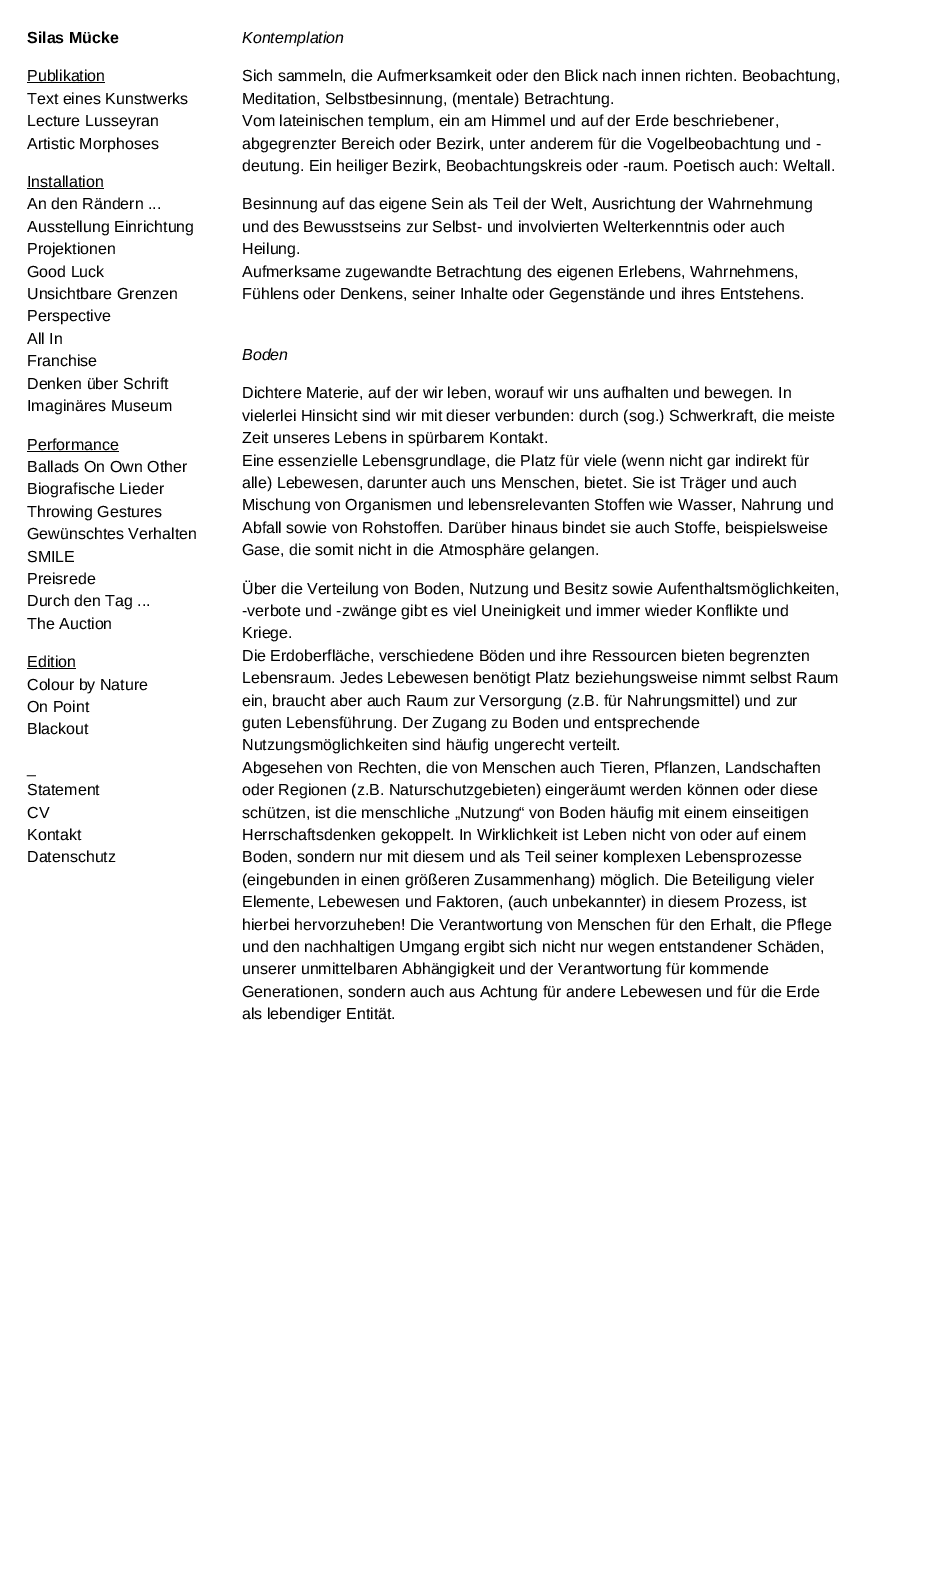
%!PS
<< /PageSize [931 1581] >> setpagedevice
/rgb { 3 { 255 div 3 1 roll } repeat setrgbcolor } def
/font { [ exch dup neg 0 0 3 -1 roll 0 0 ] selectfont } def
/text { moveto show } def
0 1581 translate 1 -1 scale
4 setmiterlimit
255 255 255 rgb
0 0 931 1581 rectfill
0 0 0 rgb
27 82 78 1 rectfill
27 188 77 1 rectfill
27 451 92 1 rectfill
27 668 49 1 rectfill
/LiberationSans-Bold 16 font
(Silas Mücke) 27 43 text
/LiberationSans-Regular 16 font
(Publikation) 27 81 text
(Text eines Kunstwerks) 27 104 text
(Lecture Lusseyran) 27 126 text
(Artistic Morphoses) 27 149 text
(Installation) 27 187 text
(An den Rändern ...) 27 209 text
(Ausstellung Einrichtung) 27 232 text
(Projektionen) 27 254 text
(Good Luck) 27 277 text
(Unsichtbare Grenzen) 27 299 text
(Perspective) 27 321 text
(All In) 27 344 text
(Franchise) 27 366 text
(Denken über Schrift) 27 389 text
(Imaginäres Museum) 27 411 text
(Performance) 27 450 text
(Ballads On Own Other) 27 472 text
(Biografische Lieder) 27 494 text
(Throwing Gestures) 27 517 text
(Gewünschtes Verhalten) 27 539 text
(SMILE) 27 562 text
(Preisrede) 27 584 text
(Durch den Tag ...) 27 606 text
(The Auction) 27 629 text
(Edition) 27 667 text
(Colour by Nature) 27 690 text
(On Point) 27 712 text
(Blackout) 27 734 text
(_) 27 773 text
(Statement) 27 795 text
(CV) 27 818 text
(Kontakt) 27 840 text
(Datenschutz) 27 862 text
/LiberationSans-Italic 16 font
(Kontemplation) 242 43 text
/LiberationSans-Regular 16 font
(Sich sammeln, die Aufmerksamkeit oder den Blick nach innen richten. Beobachtung,) 242 81 text
(Meditation, Selbstbesinnung, \(mentale\) Betrachtung.) 242 104 text
(Vom lateinischen templum, ein am Himmel und auf der Erde beschriebener,) 242 126 text
(abgegrenzter Bereich oder Bezirk, unter anderem für die Vogelbeobachtung und -) 242 149 text
(deutung. Ein heiliger Bezirk, Beobachtungskreis oder -raum. Poetisch auch: Weltall.) 242 171 text
(Besinnung auf das eigene Sein als Teil der Welt, Ausrichtung der Wahrnehmung) 242 209 text
(und des Bewusstseins zur Selbst- und involvierten Welterkenntnis oder auch) 242 232 text
(Heilung.) 242 254 text
(Aufmerksame zugewandte Betrachtung des eigenen Erlebens, Wahrnehmens,) 242 277 text
(Fühlens oder Denkens, seiner Inhalte oder Gegenstände und ihres Entstehens.) 242 299 text
/LiberationSans-Italic 16 font
(Boden) 242 360 text
/LiberationSans-Regular 16 font
(Dichtere Materie, auf der wir leben, worauf wir uns aufhalten und bewegen. In) 242 398 text
(vielerlei Hinsicht sind wir mit dieser verbunden: durch \(sog.\) Schwerkraft, die meiste) 242 421 text
(Zeit unseres Lebens in spürbarem Kontakt.) 242 443 text
(Eine essenzielle Lebensgrundlage, die Platz für viele \(wenn nicht gar indirekt für) 242 466 text
(alle\) Lebewesen, darunter auch uns Menschen, bietet. Sie ist Träger und auch) 242 488 text
(Mischung von Organismen und lebensrelevanten Stoffen wie Wasser, Nahrung und) 242 510 text
(Abfall sowie von Rohstoffen. Darüber hinaus bindet sie auch Stoffe, beispielsweise) 242 533 text
(Gase, die somit nicht in die Atmosphäre gelangen.) 242 555 text
(Über die Verteilung von Boden, Nutzung und Besitz sowie Aufenthaltsmöglichkeiten,) 242 594 text
(-verbote und -zwänge gibt es viel Uneinigkeit und immer wieder Konflikte und) 242 616 text
(Kriege.) 242 638 text
(Die Erdoberfläche, verschiedene Böden und ihre Ressourcen bieten begrenzten) 242 661 text
(Lebensraum. Jedes Lebewesen benötigt Platz beziehungsweise nimmt selbst Raum) 242 683 text
(ein, braucht aber auch Raum zur Versorgung \(z.B. für Nahrungsmittel\) und zur) 242 706 text
(guten Lebensführung. Der Zugang zu Boden und entsprechende) 242 728 text
(Nutzungsmöglichkeiten sind häufig ungerecht verteilt.) 242 750 text
(Abgesehen von Rechten, die von Menschen auch Tieren, Pflanzen, Landschaften) 242 773 text
(oder Regionen \(z.B. Naturschutzgebieten\) eingeräumt werden können oder diese) 242 795 text
(schützen, ist die menschliche „Nutzung“ von Boden häufig mit einem einseitigen) 242 818 text
(Herrschaftsdenken gekoppelt. In Wirklichkeit ist Leben nicht von oder auf einem) 242 840 text
(Boden, sondern nur mit diesem und als Teil seiner komplexen Lebensprozesse) 242 862 text
(\(eingebunden in einen größeren Zusammenhang\) möglich. Die Beteiligung vieler) 242 885 text
(Elemente, Lebewesen und Faktoren, \(auch unbekannter\) in diesem Prozess, ist) 242 907 text
(hierbei hervorzuheben! Die Verantwortung von Menschen für den Erhalt, die Pflege) 242 930 text
(und den nachhaltigen Umgang ergibt sich nicht nur wegen entstandener Schäden,) 242 952 text
(unserer unmittelbaren Abhängigkeit und der Verantwortung für kommende) 242 974 text
(Generationen, sondern auch aus Achtung für andere Lebewesen und für die Erde) 242 997 text
(als lebendiger Entität.) 242 1019 text
showpage
